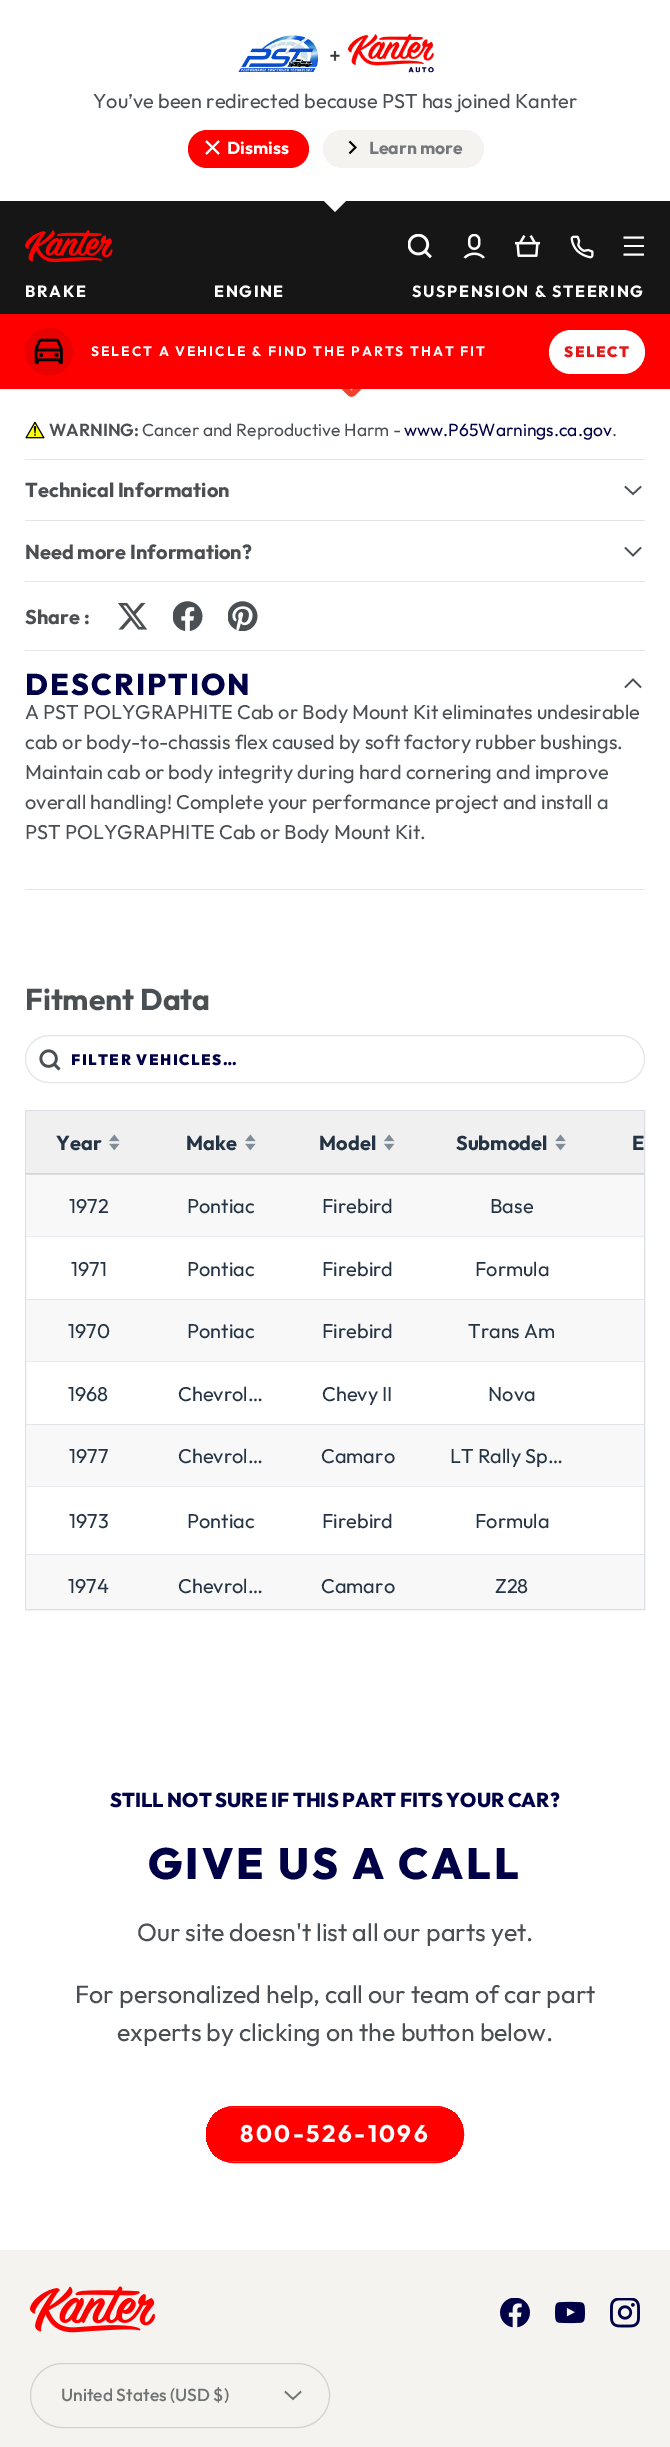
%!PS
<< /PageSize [670 2447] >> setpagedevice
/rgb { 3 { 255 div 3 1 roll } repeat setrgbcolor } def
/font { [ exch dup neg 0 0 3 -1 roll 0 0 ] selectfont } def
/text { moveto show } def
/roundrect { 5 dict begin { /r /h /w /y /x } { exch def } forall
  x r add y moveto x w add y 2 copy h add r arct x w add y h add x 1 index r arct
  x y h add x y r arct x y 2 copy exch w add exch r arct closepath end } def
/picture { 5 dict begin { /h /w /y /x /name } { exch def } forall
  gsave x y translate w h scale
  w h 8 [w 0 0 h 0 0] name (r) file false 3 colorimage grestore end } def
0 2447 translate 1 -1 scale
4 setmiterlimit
255 255 255 rgb
0 0 670 2447 rectfill
(img_01.rgb) 238 34 196 39 picture
255 0 0 rgb
188 130 121 38 19 roundrect fill
255 255 255 rgb
1.9 setlinewidth
1 setlinejoin
206 154 moveto 13 -13 rlineto 206 141 moveto 13 13 rlineto stroke
244 243 240 rgb
323 130 161 38 19 roundrect fill
(img_02.rgb) 348 140 9 15 picture
22 22 22 rgb
0 201 670 113 rectfill
255 255 255 rgb
335 170 moveto 21 21 rlineto -21 21 rlineto -21 -21 rlineto closepath fill
(img_03.rgb) 25 230 88 33 picture
(img_04.rgb) 408 234 24 25 picture
(img_05.rgb) 463 234 22 25 picture
(img_06.rgb) 515 235 25 22 picture
(img_07.rgb) 570 235 24 24 picture
2 setlinewidth
623.5 237.5 moveto 20.5 0 rlineto stroke
624 245 20 2 rectfill
623.5 254.5 moveto 20.5 0 rlineto stroke
255 0 0 rgb
0 314 670 75 rectfill
232 2 2 rgb
25 328 48 47 23.5 roundrect fill
(img_08.rgb) 34 338 29 27 picture
255 255 255 rgb
549 330 96 44 22 roundrect fill
(img_09.rgb) 341 389 21 8 picture
(img_10.rgb) 25 421 20 18 picture
228 229 229 rgb
25 459 620 1 rectfill
25 520 620 1 rectfill
74 79 83 rgb
1.6 setlinewidth
0 setlinejoin
641 486.5 moveto -8 7.5 rlineto -8 -7.5 rlineto stroke
228 229 229 rgb
25 581 620 1 rectfill
74 79 83 rgb
641 547.5 moveto -8 8 rlineto -8 -8 rlineto stroke
(img_11.rgb) 118 602 30 28 picture
(img_12.rgb) 173 601 30 30 picture
(img_13.rgb) 228 601 30 30 picture
228 229 229 rgb
25 650 620 1 rectfill
25 889 620 1 rectfill
74 79 83 rgb
641 687.5 moveto -8 -8 rlineto -8 8 rlineto stroke
228 229 229 rgb
1 setlinewidth
25.5 1035.5 619 47 23.5 roundrect stroke
(img_14.rgb) 39 1049 22 22 picture
219 223 229 rgb
25.5 1110.5 619 499 rectstroke
239 240 239 rgb
26 1111 618 62 rectfill
213 215 214 rgb
26 1173 618 1 rectfill
218 222 225 rgb
26 1174 618 1 rectfill
(img_15.rgb) 109 1134 11 17 picture
(img_16.rgb) 245 1134 11 17 picture
(img_17.rgb) 384 1134 11 17 picture
(img_18.rgb) 555 1134 11 17 picture
248 248 248 rgb
26 1175 618 61 rectfill
232 235 239 rgb
26 1236 618 1 rectfill
248 248 248 rgb
26 1300 618 61 rectfill
226 229 233 rgb
26 1299 618 1 rectfill
232 235 239 rgb
26 1361 618 1 rectfill
248 248 248 rgb
26 1425 618 61 rectfill
226 229 233 rgb
26 1424 618 1 rectfill
232 235 239 rgb
26 1486 618 1 rectfill
248 248 248 rgb
26 1555 618 54 rectfill
226 229 233 rgb
26 1554 618 1 rectfill
255 53 53 rgb
206 2106 258 57 28.5 roundrect fill
gsave
206 2106 258 57 28.5 roundrect clip newpath
gsave 206 2108 moveto 257 0 rlineto 0 53 rlineto -257 0 rlineto closepath clip newpath
<< /ShadingType 2 /ColorSpace /DeviceRGB /Coords [-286 2043 446 2226] /Extend [true true] /Function << /FunctionType 3 /Domain [0 1] /Functions [<< /FunctionType 2 /Domain [0 1] /C0 [1 0.208 0.208] /C1 [1 0.208 0.208] /N 1 >> << /FunctionType 2 /Domain [0 1] /C0 [1 0 0] /C1 [1 0 0] /N 1 >>] /Bounds [0.6] /Encode [0 1 0 1] >> >> shfill grestore
grestore
255 0 0 rgb
206.5 2106.5 257 56 28 roundrect stroke
244 243 240 rgb
0 2250 670 197 rectfill
(img_19.rgb) 30 2286 125 47 picture
(img_20.rgb) 500 2298 30 30 picture
(img_21.rgb) 555 2301 30 23 picture
(img_22.rgb) 610 2298 30 30 picture
210 210 209 rgb
30.5 2363.5 299 64 32 roundrect stroke
111 115 113 rgb
1.6 setlinewidth
301 2391.5 moveto -8 7.5 rlineto -8 -7.5 rlineto stroke
/Outfit-Regular 20 font
74 79 83 rgb
(You’ve been redirected because PST has joined Kanter) 93 108 text
/Outfit-Bold 17.5 font
255 255 255 rgb
(Dismiss) 227 154 text
117 120 122 rgb
(Learn more) 369 154 text
/Outfit-Bold 16.25 font
255 255 255 rgb
25 297 moveto 1.6 0 (BRAKE) ashow
214 297 moveto 1.6 0 (ENGINE) ashow
412 297 moveto 1.6 0 (SUSPENSION & STEERING) ashow
/Outfit-Bold 13.75 font
91 356 moveto 2 0 (SELECT A VEHICLE & FIND THE PARTS THAT FIT) ashow
/Outfit-Black 15 font
224 26 26 rgb
564 357 moveto 1.5 0 (SELECT) ashow
/Outfit-SemiBold 17.5 font
74 79 83 rgb
(WARNING:) 49 436 text
/Outfit-Regular 17.5 font
(Cancer and Reproductive Harm -) 142 436 text
0 0 70 rgb
(www.P65Warnings.ca.gov) 404 436 text
74 79 83 rgb
(.) 612 436 text
/Outfit-Bold 20 font
(Technical Information) 25 497 text
(Need more Information?) 25 559 text
(Share :) 25 624 text
/Outfit-ExtraBold 30 font
0 0 70 rgb
25 695 moveto 2.1 0 (DESCRIPTION) ashow
/Outfit-Regular 20 font
74 79 83 rgb
(A PST POLYGRAPHITE Cab or Body Mount Kit eliminates undesirable) 25 719 text
(cab or body-to-chassis flex caused by soft factory rubber bushings.) 25 749 text
(Maintain cab or body integrity during hard cornering and improve) 25 779 text
(overall handling! Complete your performance project and install a) 25 809 text
(PST POLYGRAPHITE Cab or Body Mount Kit.) 25 839 text
/Outfit-Bold 30 font
(Fitment Data) 25 1010 text
/Outfit-Black 15 font
0 0 70 rgb
71 1065 moveto 1.5 0 (FILTER VEHICLES…) ashow
/Outfit-Bold 20 font
37 52 68 rgb
(Year) 56 1150 text
(Make) 186 1150 text
(Model) 319 1150 text
(Submodel) 456 1150 text
(E) 632 1150 text
/Outfit-Regular 20 font
(1972) 69 1213 text
(Pontiac) 187 1213 text
(Firebird) 322 1213 text
(Base) 490 1213 text
(1971) 71 1276 text
(Pontiac) 187 1276 text
(Firebird) 322 1276 text
(Formula) 475 1276 text
(1970) 68 1338 text
(Pontiac) 187 1338 text
(Firebird) 322 1338 text
(Trans Am) 468 1338 text
(1968) 68 1401 text
(Chevrol…) 178 1401 text
(Chevy II) 322 1401 text
(Nova) 488 1401 text
(1977) 69 1463 text
(Chevrol…) 178 1463 text
(Camaro) 321 1463 text
(LT Rally Sp…) 450 1463 text
(1973) 69 1528 text
(Pontiac) 187 1528 text
(Firebird) 322 1528 text
(Formula) 475 1528 text
(1974) 68 1593 text
(Chevrol…) 178 1593 text
(Camaro) 321 1593 text
(Z28) 495 1593 text
/Outfit-ExtraBold 20 font
0 0 70 rgb
(STILL NOT SURE IF THIS PART FITS YOUR CAR?) 110 1807 text
/Outfit-ExtraBold 43.6 font
148 1879 moveto 3 0 (GIVE US A CALL) ashow
/Outfit-Regular 25 font
74 79 83 rgb
(Our site doesn't list all our parts yet.) 137 1941 text
(For personalized help, call our team of car part) 75 2003 text
(experts by clicking on the button below.) 117 2041 text
/Outfit-Bold 24 font
255 255 255 rgb
240 2142 moveto 2.4 0 (800-526-1096) ashow
/Outfit-Medium 17.5 font
111 115 113 rgb
(United States \(USD $\)) 61 2401 text
showpage
